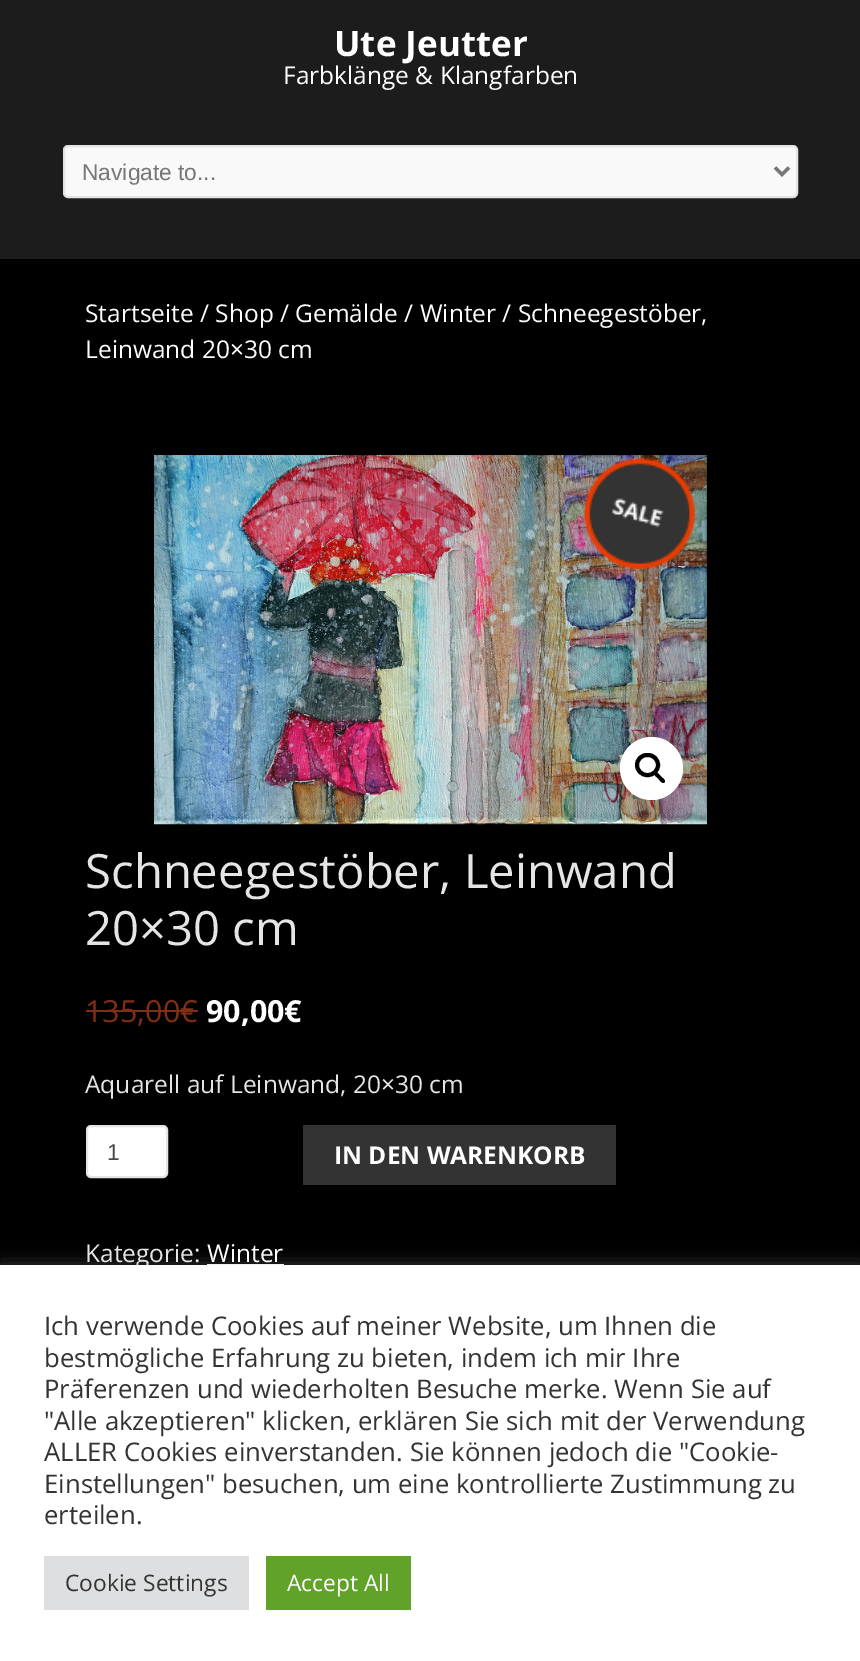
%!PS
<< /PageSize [860 1661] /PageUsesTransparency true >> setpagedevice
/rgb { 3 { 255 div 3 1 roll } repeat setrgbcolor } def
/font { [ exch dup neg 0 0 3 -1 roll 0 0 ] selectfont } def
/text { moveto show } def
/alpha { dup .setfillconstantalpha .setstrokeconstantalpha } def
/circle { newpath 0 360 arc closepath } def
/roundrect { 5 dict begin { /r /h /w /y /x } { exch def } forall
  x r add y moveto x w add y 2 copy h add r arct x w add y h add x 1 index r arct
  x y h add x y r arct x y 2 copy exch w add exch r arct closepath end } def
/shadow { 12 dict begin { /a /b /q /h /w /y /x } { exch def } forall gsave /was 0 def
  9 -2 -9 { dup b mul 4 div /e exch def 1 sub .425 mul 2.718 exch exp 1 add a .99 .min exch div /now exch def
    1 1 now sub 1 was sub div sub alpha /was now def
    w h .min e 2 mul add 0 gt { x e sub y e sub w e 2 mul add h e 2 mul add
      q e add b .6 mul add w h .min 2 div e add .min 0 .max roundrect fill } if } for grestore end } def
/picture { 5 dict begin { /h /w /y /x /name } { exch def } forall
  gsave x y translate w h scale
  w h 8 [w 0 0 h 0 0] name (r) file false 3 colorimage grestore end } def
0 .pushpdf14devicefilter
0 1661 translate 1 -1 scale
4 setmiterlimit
0 0 0 rgb
0 0 860 1661 rectfill
28 28 28 rgb
0 0 860 259 rectfill
249 249 249 rgb
64 146 733 51 4 roundrect gsave fill grestore
227 227 227 rgb
2 setlinewidth
stroke
119 119 119 rgb
3.5 setlinewidth
775 167.5 moveto 7 7 rlineto 7 -7 rlineto stroke
(img_01.rgb) 154 455 553 370 picture
255 255 255 rgb
651.5 768.5 31.5 circle fill
0 0 0 rgb
4 setlinewidth
637 755 21 20 10 roundrect stroke
654.5 772.5 moveto 2 -2 5.5 3 6.5 4 rcurveto 1 1 5.5 4 3.5 6 rcurveto -2 2 -5 -2.5 -6 -3.5 rcurveto -1 -1.5 -6 -4.5 -4 -6.5 rcurveto closepath fill
(img_02.rgb) 584 458 111 111 picture
128 47 21 rgb
86 1010 112 2 rectfill
255 255 255 rgb
87 1126 80 51 4 roundrect gsave fill grestore
229 229 229 rgb
2 setlinewidth
stroke
51 51 51 rgb
303 1125 313 60 rectfill
255 255 255 rgb
207 1264 77 1 rectfill
172 171 171 rgb
0 1264 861 397 0 9 0.3 shadow
/OpenSans-Bold 35 font
255 255 255 rgb
(Ute Jeutter) 334 56 text
/OpenSans-Regular 24.5 font
(Farbklänge & Klangfarben) 283 84 text
/LiberationSans-Regular 22.75 font
119 119 119 rgb
(Navigate to...) 82 180 text
/OpenSans-Regular 24.5 font
255 255 255 rgb
(Startseite / Shop / Gemälde / Winter / Schneegestöber,) 85 322 text
(Leinwand 20×30 cm) 85 358 text
/OpenSans-Regular 47.25 font
229 229 229 rgb
(Schneegestöber, Leinwand) 85 888 text
(20×30 cm) 85 945 text
/OpenSans-Regular 30.5 font
128 47 21 rgb
(135,00€) 85 1022 text
/OpenSans-Bold 30.5 font
255 255 255 rgb
(90,00€) 206 1022 text
/OpenSans-Regular 24.5 font
229 229 229 rgb
(Aquarell auf Leinwand, 20×30 cm) 85 1093 text
/LiberationSans-Regular 22.75 font
69 73 76 rgb
(1) 107 1160 text
/OpenSans-Bold 24.5 font
255 255 255 rgb
(IN DEN WARENKORB) 334 1164 text
/OpenSans-Regular 24.5 font
229 229 229 rgb
(Kategorie:) 85 1262 text
255 255 255 rgb
(Winter) 207 1262 text
0 1265 860 396 rectfill
/OpenSans-Regular 25.7 font
51 51 51 rgb
(Ich verwende Cookies auf meiner Website, um Ihnen die) 44 1335 text
(bestmögliche Erfahrung zu bieten, indem ich mir Ihre) 44 1367 text
(Präferenzen und wiederholten Besuche merke. Wenn Sie auf) 44 1398 text
("Alle akzeptieren" klicken, erklären Sie sich mit der Verwendung) 44 1430 text
(ALLER Cookies einverstanden. Sie können jedoch die "Cookie-) 44 1461 text
(Einstellungen" besuchen, um eine kontrollierte Zustimmung zu) 44 1493 text
(erteilen.) 44 1524 text
222 223 224 rgb
44 1556 205 54 rectfill
/OpenSans-Regular 22.75 font
51 51 51 rgb
(Cookie Settings) 65 1591 text
97 162 41 rgb
266 1556 145 54 rectfill
255 255 255 rgb
(Accept All) 287 1591 text
.poppdf14devicefilter showpage
